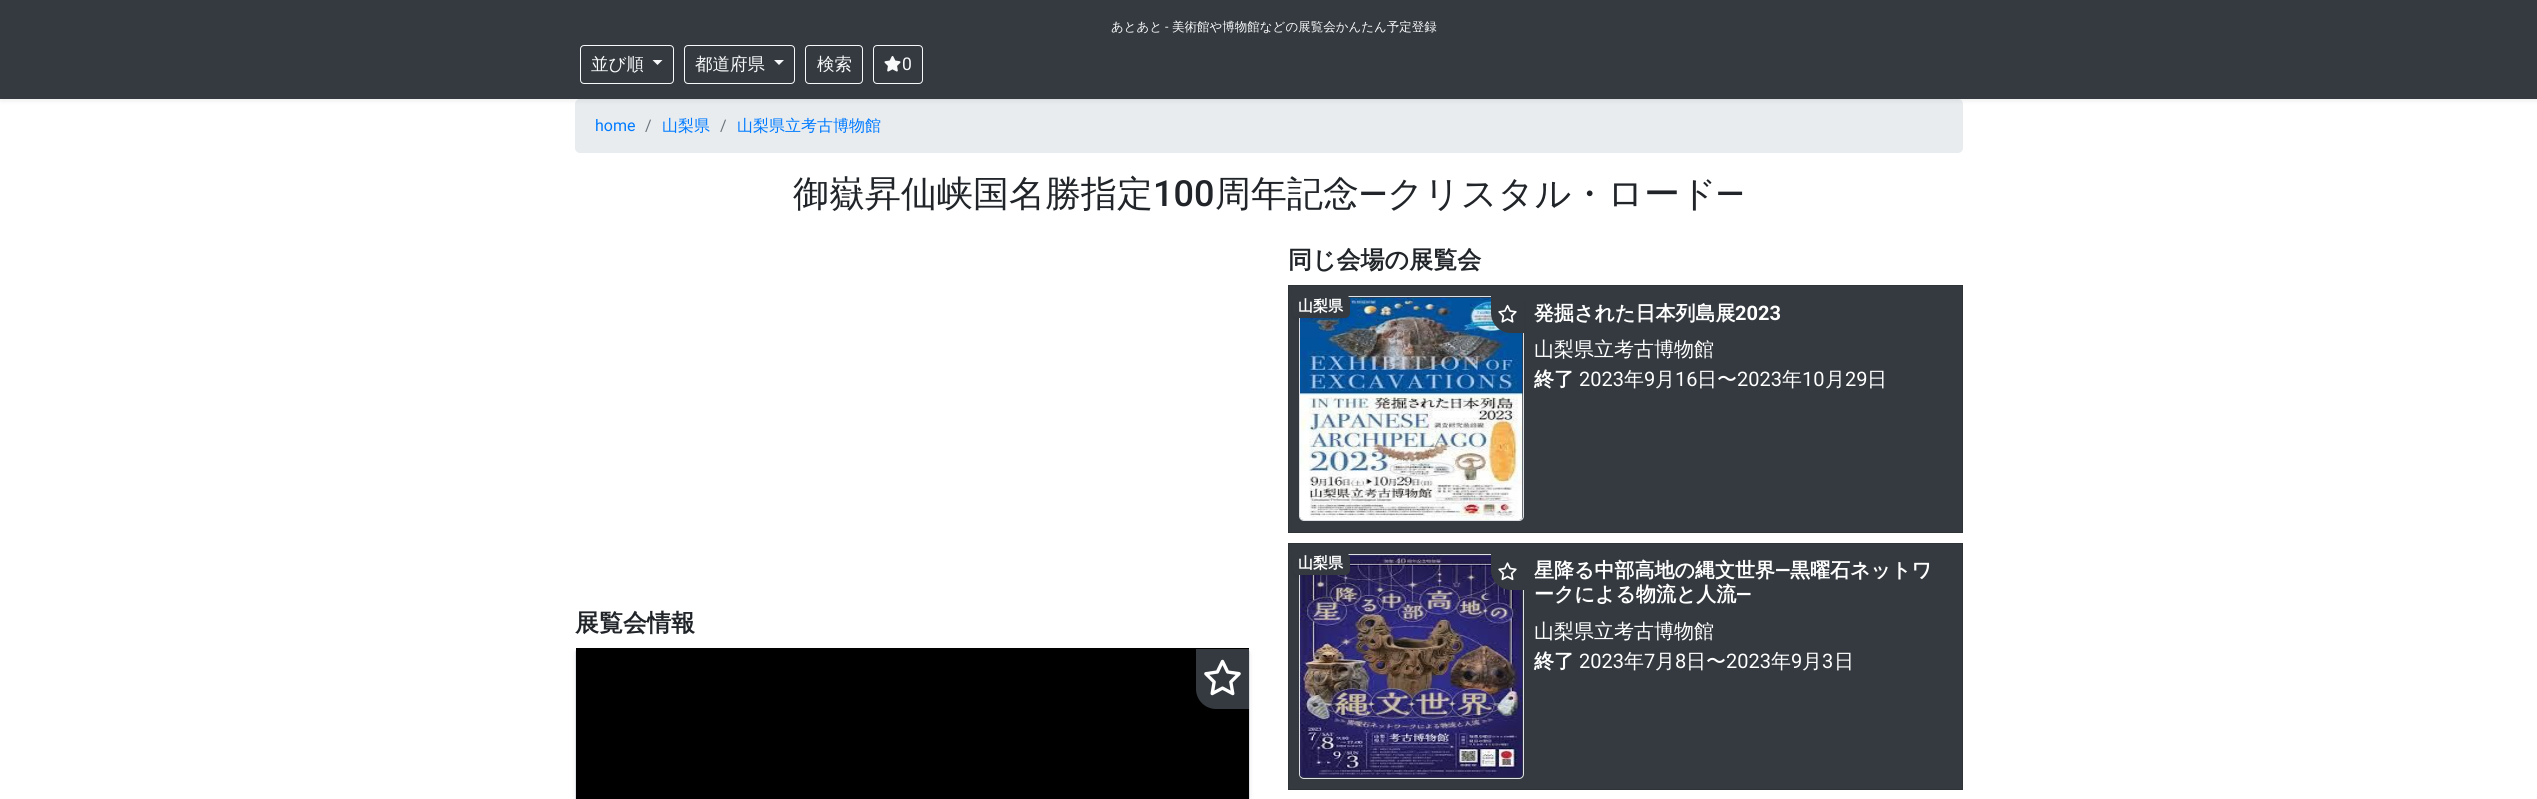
import math
import cairo

surface = cairo.ImageSurface(cairo.FORMAT_RGB24, 2537, 799)
c = cairo.Context(surface)
options = cairo.FontOptions()
options.set_hint_metrics(cairo.HINT_METRICS_OFF)
options.set_hint_style(cairo.HINT_STYLE_NONE)
c.set_font_options(options)
c.set_miter_limit(4)
def C(code):
 c.set_source_rgb(*(v / 255 for v in bytes.fromhex(code[-6:])))
def F(family, size, italic, bold):
 c.select_font_face(family, cairo.FONT_SLANT_ITALIC if italic else cairo.FONT_SLANT_NORMAL, cairo.FONT_WEIGHT_BOLD if bold else cairo.FONT_WEIGHT_NORMAL)
 c.set_font_size(size)
def T(x, y, s):
 c.move_to(x, y)
 c.show_text(s)
def R(x, y, w, h):
 c.rectangle(x, y, w, h)
 c.fill()
def Q(x, y, w, h, r):
 c.new_sub_path()
 for i, (u, v) in enumerate([(x + w - r, y + h - r), (x + r, y + h - r), (x + r, y + r), (x + w - r, y + r)]):
  c.arc(u, v, r, i * math.pi / 2, (i + 1) * math.pi / 2)
 c.close_path()
def S(x, y, w, h, r, blur, alpha):
 c.push_group_with_content(cairo.CONTENT_ALPHA)
 c.set_operator(cairo.OPERATOR_SOURCE)
 for i in range(15, -16, -2):
  e = blur * i / 6
  if min(w, h) + 2 * e > 0:
   c.set_source_rgba(0, 0, 0, alpha * math.erfc((i - 1) / 8.5) / 2)
   Q(x - e, y - e, w + 2 * e, h + 2 * e, max(0, min(r + e + blur * .6, min(w, h) / 2 + e)))
   c.fill()
 c.mask(c.pop_group())
def I(path, x, y, w, h):
 c.save()
 c.set_source_surface(cairo.ImageSurface.create_from_png(path), x, y)
 c.rectangle(x, y, w, h)
 c.fill()
 c.restore()
C('ffffff')
c.paint()
C('e9ecef')
Q(575,99,1388,54,5)
c.fill()
C('000000')
S(0,3,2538,98,0,2.5,.07)
C('343a40')
R(0,0,2537,99)
F('WenQuanYi Zen Hei Medium',12.5,0,0)
C('f8f9fa')
T(1111,31,'あとあと')
F('Roboto',12.5,0,0)
T(1165,31,'-')
F('WenQuanYi Zen Hei Medium',12.5,0,0)
T(1172,31,'美術館や博物館などの展覧会かんたん予定登録')
Q(580.5,45.5,93,38,3.5)
c.set_line_width(1)
c.stroke()
F('WenQuanYi Zen Hei Medium',17.5,0,0)
T(591,70,'並び順')
c.new_path()
c.move_to(652.5,60)
c.line_to(662.5,60)
c.line_to(657.5,65)
c.close_path()
c.fill()
Q(684.5,45.5,110,38,3.5)
c.stroke()
T(695,70,'都道府県')
c.new_path()
c.move_to(774,60)
c.line_to(784,60)
c.line_to(779,65)
c.close_path()
c.fill()
Q(805.5,45.5,57,38,3.5)
c.stroke()
T(817,70,'検索')
Q(873.5,45.5,49,38,3.5)
c.stroke()
I('1.png',884,56,17,16)
F('Roboto',17.5,0,0)
T(902,70,'0')
F('Roboto',16,0,0)
C('007bff')
T(595,131,'home')
C('6c757d')
T(645,131,'/')
F('WenQuanYi Zen Hei Medium',16,0,0)
C('007bff')
T(662,131,'山梨県')
F('Roboto',16,0,0)
C('6c757d')
T(720,131,'/')
F('WenQuanYi Zen Hei Medium',16,0,0)
C('007bff')
T(737,131,'山梨県立考古博物館')
F('WenQuanYi Zen Hei Medium',36,0,0)
C('212529')
T(793,206,'御嶽昇仙峡国名勝指定')
F('Roboto Medium',36,0,0)
T(1153,206,'100')
F('WenQuanYi Zen Hei Medium',36,0,0)
T(1215,206,'周年記念')
F('Roboto Medium',36,0,0)
T(1359,206,'—')
F('WenQuanYi Zen Hei Medium',36,0,0)
T(1387,206,'クリスタル・ロード')
F('Roboto Medium',36,0,0)
T(1716,206,'—')
F('WenQuanYi Zen Hei',24,0,1)
T(575,631,'展覧会情報')
C('000000')
S(575,650,675,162,5,2.5,.07)
Q(575.5,648.5,674,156,4.5)
C('dee2e6')
c.stroke()
C('000000')
R(576,648,673,151)
C('343a40')
c.new_path()
c.move_to(1196,649)
c.line_to(1249,649)
c.line_to(1249,709)
c.line_to(1216,709)
c.curve_to(1205,709,1196,700,1196,689)
c.close_path()
c.fill()
I('2.png',1204,659,37,37)
C('212529')
T(1288,268,'同じ会場の展覧会')
C('343a40')
c.rectangle(1288.5,285.5,674,247)
c.fill_preserve()
C('2e3338')
c.stroke()
Q(1299.5,296.5,224,224,4.5)
C('dee2e6')
c.stroke()
I('4.png',1300,297,223,223)
C('000000')
S(1293,298,57,22,5,2.5,.07)
C('343a40')
Q(1293,295,57,23,5)
c.fill()
F('WenQuanYi Zen Hei',15,0,1)
C('ffffff')
T(1298,311,'山梨県')
c.save()
c.set_fill_rule(cairo.FILL_RULE_EVEN_ODD)
c.new_path()
c.move_to(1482,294)
c.line_to(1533,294)
c.line_to(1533,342)
c.line_to(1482,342)
c.close_path()
c.move_to(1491,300)
c.line_to(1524,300)
c.line_to(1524,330)
c.line_to(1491,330)
c.close_path()
c.clip()
C('000000')
S(1491,303,33,30,0,2.5,.07)
c.restore()
C('343a40')
c.new_path()
c.move_to(1491,296)
c.line_to(1524,296)
c.line_to(1524,333)
c.line_to(1511,333)
c.curve_to(1500,333,1491,324,1491,313)
c.close_path()
c.fill()
I('3.png',1498,304,19,19)
F('WenQuanYi Zen Hei',20,0,1)
C('ffffff')
T(1534,320,'発掘された日本列島展')
F('Roboto',20,0,1)
T(1735,320,'2023')
F('WenQuanYi Zen Hei Medium',20,0,0)
T(1534,356,'山梨県立考古博物館')
F('WenQuanYi Zen Hei',20,0,1)
T(1534,386,'終了')
F('Roboto',20,0,0)
T(1579,386,'2023')
F('WenQuanYi Zen Hei Medium',20,0,0)
T(1624,386,'年')
F('Roboto',20,0,0)
T(1644,386,'9')
F('WenQuanYi Zen Hei Medium',20,0,0)
T(1655,386,'月')
F('Roboto',20,0,0)
T(1675,386,'16')
F('WenQuanYi Zen Hei Medium',20,0,0)
T(1697,386,'日〜')
F('Roboto',20,0,0)
T(1737,386,'2023')
F('WenQuanYi Zen Hei Medium',20,0,0)
T(1782,386,'年')
F('Roboto',20,0,0)
T(1802,386,'10')
F('WenQuanYi Zen Hei Medium',20,0,0)
T(1825,386,'月')
F('Roboto',20,0,0)
T(1845,386,'29')
F('WenQuanYi Zen Hei Medium',20,0,0)
T(1867,386,'日')
C('343a40')
c.rectangle(1288.5,543.5,674,246)
c.fill_preserve()
C('2e3338')
c.stroke()
Q(1299.5,554.5,224,224,4.5)
C('dee2e6')
c.stroke()
I('6.png',1300,555,223,223)
C('000000')
S(1293,555,57,23,5,2.5,.07)
C('343a40')
Q(1293,553,57,22,5)
c.fill()
F('WenQuanYi Zen Hei',15,0,1)
C('ffffff')
T(1298,568,'山梨県')
C('343a40')
c.new_path()
c.move_to(1491,554)
c.line_to(1524,554)
c.line_to(1524,590)
c.line_to(1511,590)
c.curve_to(1500,590,1491,581,1491,570)
c.close_path()
c.fill()
I('5.png',1498,562,19,19)
F('WenQuanYi Zen Hei',20,0,1)
C('ffffff')
T(1534,577,'星降る中部高地の縄文世界')
F('Roboto',20,0,1)
T(1775,577,'—')
F('WenQuanYi Zen Hei',20,0,1)
T(1790,577,'黒曜石ネットワ')
T(1534,601,'ークによる物流と人流')
F('Roboto',20,0,1)
T(1736,601,'—')
F('WenQuanYi Zen Hei Medium',20,0,0)
T(1534,638,'山梨県立考古博物館')
F('WenQuanYi Zen Hei',20,0,1)
T(1534,668,'終了')
F('Roboto',20,0,0)
T(1579,668,'2023')
F('WenQuanYi Zen Hei Medium',20,0,0)
T(1624,668,'年')
F('Roboto',20,0,0)
T(1644,668,'7')
F('WenQuanYi Zen Hei Medium',20,0,0)
T(1655,668,'月')
F('Roboto',20,0,0)
T(1675,668,'8')
F('WenQuanYi Zen Hei Medium',20,0,0)
T(1686,668,'日〜')
F('Roboto',20,0,0)
T(1726,668,'2023')
F('WenQuanYi Zen Hei Medium',20,0,0)
T(1771,668,'年')
F('Roboto',20,0,0)
T(1791,668,'9')
F('WenQuanYi Zen Hei Medium',20,0,0)
T(1802,668,'月')
F('Roboto',20,0,0)
T(1822,668,'3')
F('WenQuanYi Zen Hei Medium',20,0,0)
T(1834,668,'日')
surface.write_to_png('o.png')
